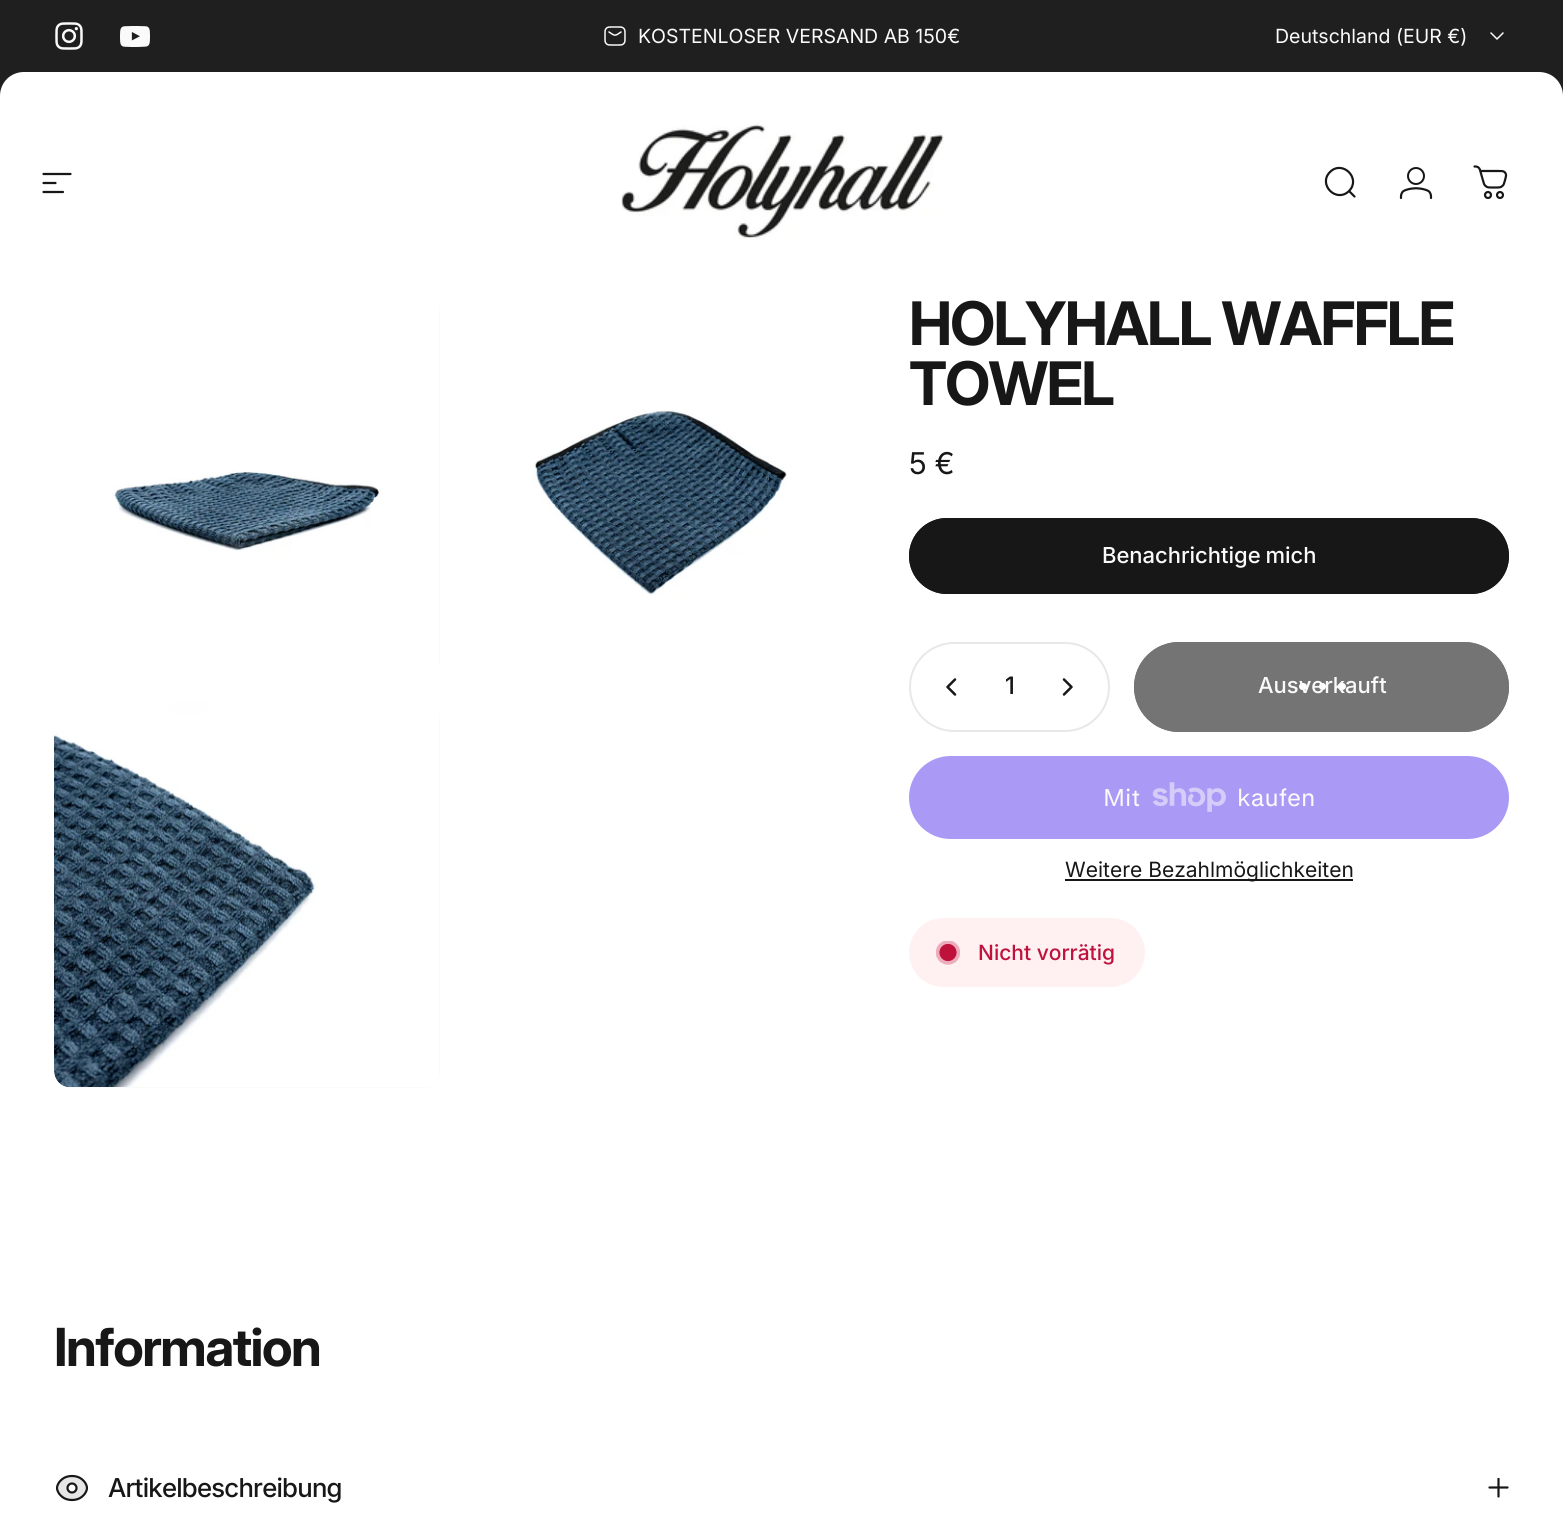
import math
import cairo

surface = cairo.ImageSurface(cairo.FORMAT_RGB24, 1563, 1533)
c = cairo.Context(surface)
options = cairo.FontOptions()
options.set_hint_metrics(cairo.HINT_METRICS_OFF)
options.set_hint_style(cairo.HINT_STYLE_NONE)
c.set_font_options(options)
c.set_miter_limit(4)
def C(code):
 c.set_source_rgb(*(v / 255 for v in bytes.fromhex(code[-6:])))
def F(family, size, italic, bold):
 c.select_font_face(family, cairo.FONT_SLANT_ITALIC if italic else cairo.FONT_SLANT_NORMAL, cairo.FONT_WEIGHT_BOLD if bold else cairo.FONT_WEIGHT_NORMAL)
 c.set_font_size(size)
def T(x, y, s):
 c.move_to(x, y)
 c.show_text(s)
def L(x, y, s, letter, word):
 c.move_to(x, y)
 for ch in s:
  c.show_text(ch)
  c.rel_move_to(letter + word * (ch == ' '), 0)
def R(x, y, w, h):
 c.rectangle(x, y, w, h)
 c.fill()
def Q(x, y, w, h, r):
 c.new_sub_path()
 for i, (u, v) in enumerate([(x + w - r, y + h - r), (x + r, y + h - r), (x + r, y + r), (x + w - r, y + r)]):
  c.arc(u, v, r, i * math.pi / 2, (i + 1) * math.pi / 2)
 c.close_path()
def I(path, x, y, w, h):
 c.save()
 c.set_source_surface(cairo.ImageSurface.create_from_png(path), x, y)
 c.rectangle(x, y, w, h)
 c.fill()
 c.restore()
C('ffffff')
c.paint()
C('1f1f1f')
R(0,0,1563,24)
c.new_path()
c.move_to(24,0)
c.line_to(1539,0)
c.curve_to(1552.5,0,1563,10.5,1563,24)
c.line_to(1563,96)
c.line_to(0,96)
c.line_to(0,24)
c.curve_to(0,10.5,10.5,0,24,0)
c.close_path()
c.fill()
I('1.png',55,22,28,28)
I('2.png',120,26,30,21)
I('3.png',604,26,22,20)
F('Inter',19.5,0,0)
C('fafafa')
T(638,43,'KOSTENLOSER VERSAND AB 150€')
T(1275,43,'Deutschland (EUR €)')
c.new_path()
c.move_to(1491,33)
c.line_to(1497,39)
c.line_to(1503,33)
c.set_line_width(1.5)
c.set_line_cap(cairo.LINE_CAP_ROUND)
c.set_line_join(cairo.LINE_JOIN_ROUND)
c.stroke()
C('ffffff')
c.new_path()
c.move_to(24,72)
c.line_to(1539,72)
c.curve_to(1552.5,72,1563,82.5,1563,96)
c.line_to(1563,294)
c.line_to(0,294)
c.line_to(0,96)
c.curve_to(0,82.5,10.5,72,24,72)
c.close_path()
c.fill()
c.new_path()
c.move_to(43.5,174)
c.line_to(70.5,174)
c.move_to(43.5,183)
c.line_to(55.5,183)
c.move_to(43.5,192)
c.line_to(63,192)
C('171717')
c.set_line_width(2.2)
c.set_line_join(cairo.LINE_JOIN_MITER)
c.stroke()
I('4.png',621,122,323,118)
c.new_path()
c.move_to(1354.5,196.5)
c.line_to(1349,191)
c.move_to(1349,191)
c.curve_to(1361.5,178.5,1342.5,159.5,1330,172)
c.curve_to(1317.5,184.5,1336.5,203.5,1349,191)
c.close_path()
c.stroke()
I('5.png',1399,167,34,33)
I('6.png',1473,165,35,35)
C('fafafa')
Q(54,294,386,384,17)
c.fill()
I('7.png',54,294,385,384)
Q(464,294,385,384,17)
c.fill()
I('8.png',464,294,385,384)
Q(54,702,386,386,17)
c.fill()
I('9.png',54,702,385,385)
F('Inter',60,0,1)
C('171717')
L(909,345,'HOLYHALL WAFFLE',-1.75,0)
L(909,405,'TOWEL',-1.75,0)
F('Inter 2',30,0,0)
T(909,474,'5 €')
Q(909,518,600,76,38)
c.fill()
Q(910.5,519.5,597,73,36.5)
c.set_line_width(3)
c.set_line_cap(cairo.LINE_CAP_BUTT)
c.stroke()
F('Inter Medium',22,0,0)
C('fafafa')
L(1102,563,'Benachrichtige mich',0,-1)
Q(910,643,199,88,44)
C('e8e8e8')
c.set_line_width(2)
c.stroke()
c.new_path()
c.move_to(955,679.5)
c.line_to(947.5,687)
c.line_to(955,694.5)
C('171717')
c.set_line_width(2.5)
c.set_line_cap(cairo.LINE_CAP_ROUND)
c.set_line_join(cairo.LINE_JOIN_ROUND)
c.stroke()
F('Inter 2 Medium',24,0,0)
T(1005,694,'1')
c.new_path()
c.move_to(1064,679.5)
c.line_to(1071.5,687)
c.line_to(1064,694.5)
c.stroke()
C('747474')
Q(1134,642,375,90,45)
c.fill()
C('ffffff')
Q(1299,683,8,7,3.5)
c.fill()
c.arc(1322.5,686.5,3.5,0,2 * math.pi)
c.fill()
Q(1338,683,8,7,3.5)
c.fill()
Q(1135.5,643.5,372,87,43.5)
C('747474')
c.set_line_width(3)
c.set_line_cap(cairo.LINE_CAP_BUTT)
c.set_line_join(cairo.LINE_JOIN_MITER)
c.stroke()
F('Inter Medium',22,0,0)
C('fafafa')
T(1258,693,'Ausverkauft')
C('aa99f5')
Q(909,756,600,83,41.5)
c.fill()
F('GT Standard',24,0,0)
C('fafafa')
T(1103,806,'Mit')
I('10.png',1152,782,74,30)
T(1237,806,'kaufen')
C('171717')
R(1065,879,288,2)
F('Inter',21,0,0)
T(1065,877,'Weitere Bezahlmöglichkeiten')
C('fff1f2')
Q(909,918,236,69,34.5)
c.fill()
C('be123c')
c.arc(948,952.5,7.5,0,2 * math.pi)
c.fill_preserve()
c.set_line_width(2.2)
c.stroke()
c.save()
c.rectangle(936,941,24,24)
c.clip()
c.arc(948,952.5,10,0,2 * math.pi)
c.set_source_rgba(0.745,0.071,0.235,0.3)
c.set_line_width(4.5)
c.stroke()
c.restore()
F('Inter Medium',21,0,0)
T(978,960,'Nicht vorrätig')
F('Inter',52.5,0,1)
C('171717')
L(54,1366,'Information',-1.5,0)
I('11.png',55,1474,34,28)
F('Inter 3 Medium',26,0,0)
L(108,1497,'Artikelbeschreibung',-.75,0)
c.save()
c.rectangle(1488,1478,21,21)
c.clip()
c.new_path()
c.move_to(1498.5,1496.5)
c.line_to(1498.5,1478.5)
c.move_to(1507.5,1487.5)
c.line_to(1489.5,1487.5)
c.set_line_cap(cairo.LINE_CAP_ROUND)
c.set_line_join(cairo.LINE_JOIN_ROUND)
c.stroke()
c.restore()
surface.write_to_png('o.png')
